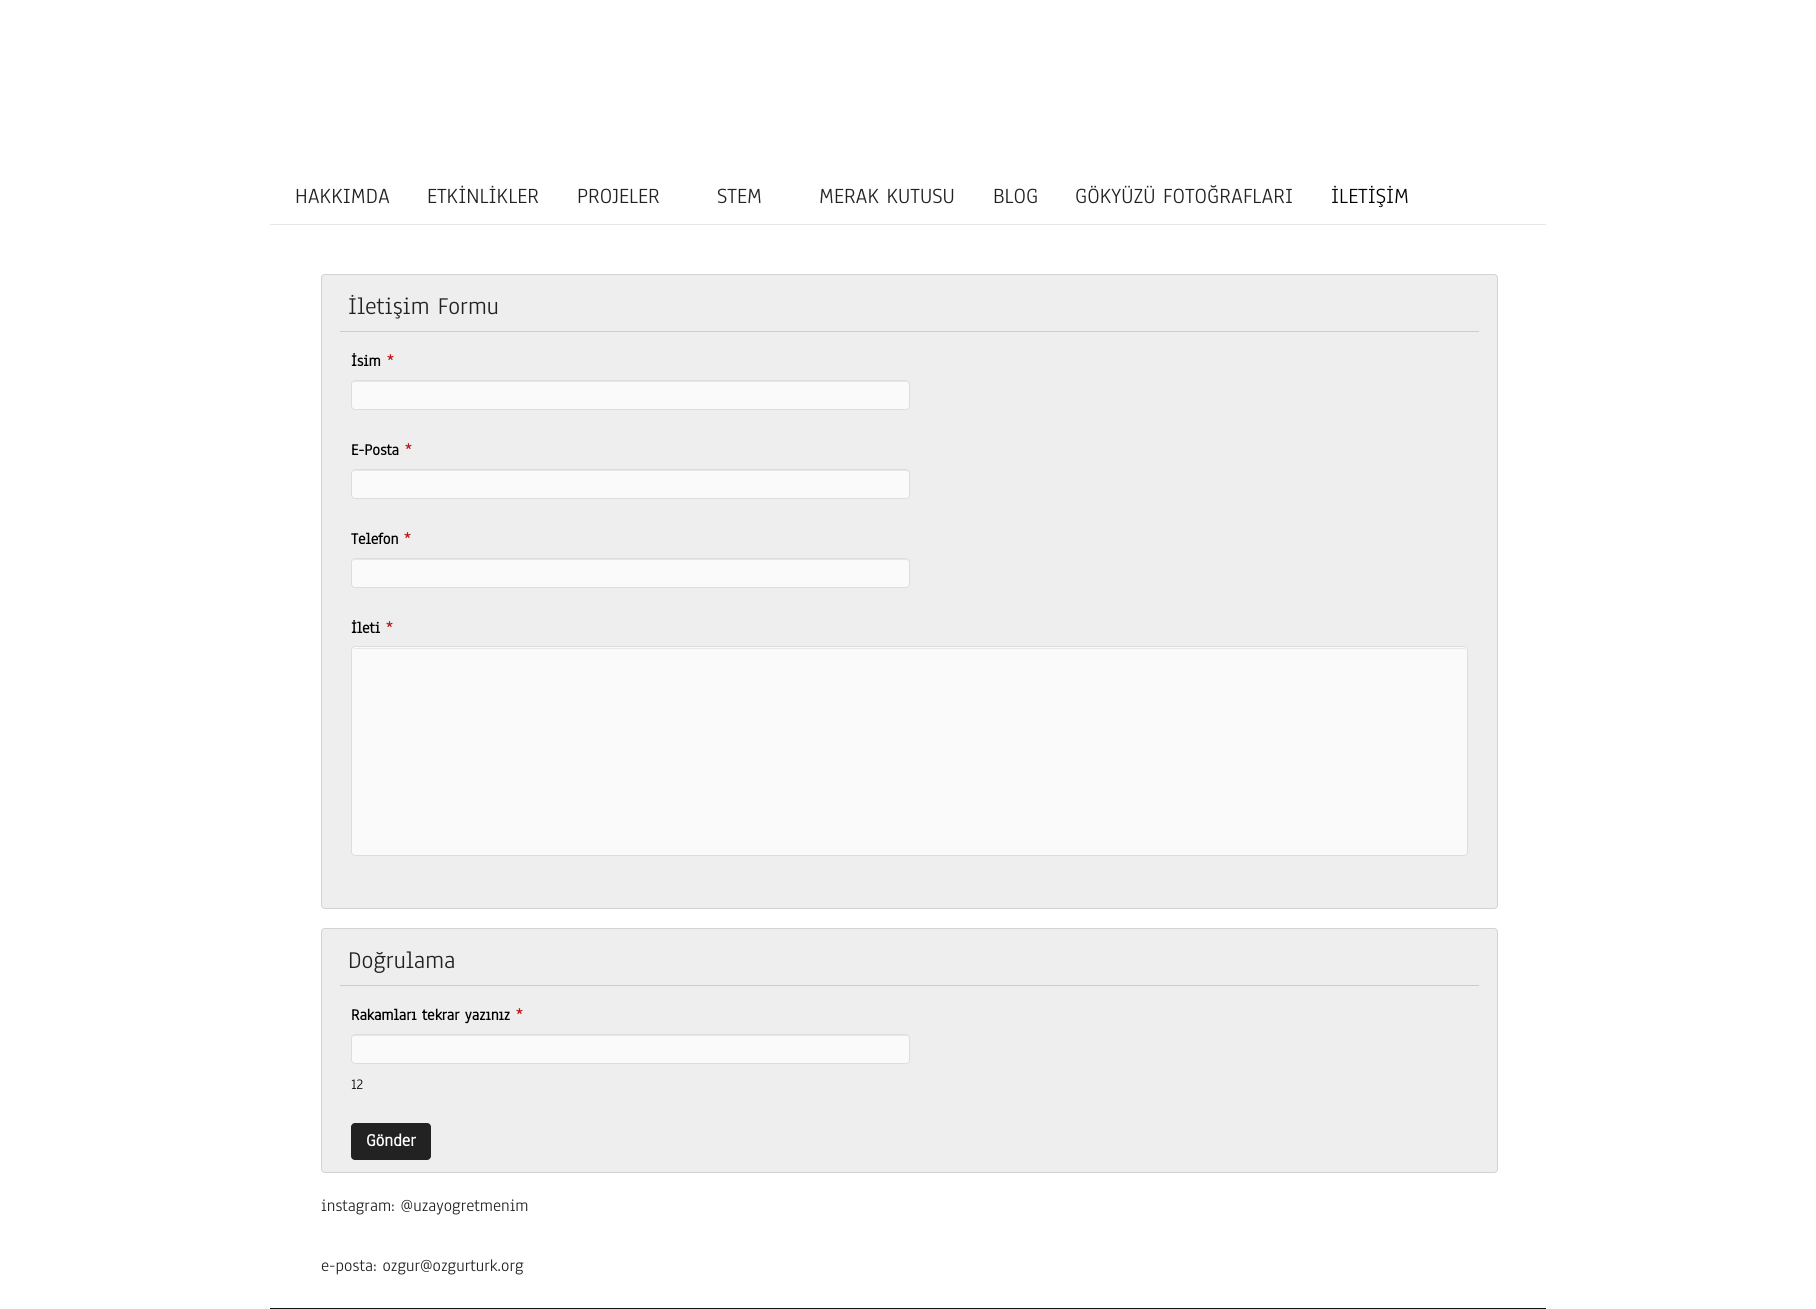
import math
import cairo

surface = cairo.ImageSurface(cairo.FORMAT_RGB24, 1816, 1309)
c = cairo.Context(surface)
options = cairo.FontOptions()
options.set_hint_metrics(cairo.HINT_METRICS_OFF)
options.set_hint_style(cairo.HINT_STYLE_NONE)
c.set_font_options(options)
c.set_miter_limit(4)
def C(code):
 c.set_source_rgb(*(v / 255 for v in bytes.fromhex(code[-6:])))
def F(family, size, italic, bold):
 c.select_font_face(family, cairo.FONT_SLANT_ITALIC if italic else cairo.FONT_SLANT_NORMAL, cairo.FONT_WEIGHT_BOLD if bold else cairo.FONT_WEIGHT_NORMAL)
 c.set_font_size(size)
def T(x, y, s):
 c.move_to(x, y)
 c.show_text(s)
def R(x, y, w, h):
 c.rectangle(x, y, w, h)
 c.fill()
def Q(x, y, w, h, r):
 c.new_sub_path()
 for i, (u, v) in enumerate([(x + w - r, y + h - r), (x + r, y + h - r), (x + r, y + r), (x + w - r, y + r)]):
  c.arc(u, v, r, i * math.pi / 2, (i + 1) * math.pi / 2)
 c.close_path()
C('ffffff')
c.paint()
C('e6e6e6')
R(270,224,1276,1)
F('Anaheim',22.5,0,0)
C('222222')
T(295,203,'HAKKIMDA')
T(427,203,'ETKİNLİKLER')
T(577,203,'PROJELER')
T(717,203,'STEM')
T(819,203,'MERAK KUTUSU')
T(993,203,'BLOG')
T(1075,203,'GÖKYÜZÜ FOTOĞRAFLARI')
C('000000')
T(1331,203,'İLETİŞİM')
C('eeeeee')
Q(321.5,274.5,1176,634,3.5)
c.fill_preserve()
C('d3d3d3')
c.set_line_width(1)
c.stroke()
C('cccccc')
R(340,331,1139,1)
F('Anaheim',25,0,0)
C('222222')
T(348,314,'İletişim Formu')
F('Anaheim',16.25,0,1)
C('000000')
T(351,366,'İsim')
C('bc1212')
T(387,366,'*')
C('fafafa')
Q(351,380,559,30,4)
c.fill()
C('e7e7e7')
c.new_path()
c.move_to(355,382)
c.line_to(906,382)
c.curve_to(908,382,909,384,909,385)
c.line_to(909,384)
c.curve_to(909,382,908,381,906,381)
c.line_to(356,381)
c.curve_to(354,381,353,382,353,383)
c.close_path()
c.fill()
Q(351.5,380.5,558,29,3.5)
C('dddddd')
c.stroke()
C('000000')
T(351,455,'E-Posta')
C('bc1212')
T(405,455,'*')
C('fafafa')
Q(351,469,559,30,4)
c.fill()
C('e7e7e7')
c.new_path()
c.move_to(355,471)
c.line_to(906,471)
c.curve_to(908,471,909,472,909,474)
c.line_to(909,472)
c.curve_to(909,471,908,470,906,470)
c.line_to(356,470)
c.curve_to(354,470,353,471,353,472)
c.close_path()
c.fill()
Q(351.5,469.5,558,29,3.5)
C('dddddd')
c.stroke()
C('000000')
T(351,544,'Telefon')
C('bc1212')
T(404,544,'*')
C('fafafa')
Q(351,558,559,30,4)
c.fill()
C('e7e7e7')
c.new_path()
c.move_to(355,560)
c.line_to(906,560)
c.curve_to(908,560,909,561,909,562)
c.line_to(909,560)
c.line_to(907,559)
c.line_to(354,559)
c.line_to(353,561)
c.close_path()
c.fill()
Q(351.5,558.5,558,29,3.5)
C('dddddd')
c.stroke()
C('000000')
T(351,633,'İleti')
C('bc1212')
T(386,633,'*')
C('fafafa')
Q(351,646,1117,210,4)
c.fill()
C('e7e7e7')
c.new_path()
c.move_to(355,649)
c.line_to(1464,649)
c.curve_to(1465,649,1466,650,1466,651)
c.curve_to(1466,649,1465,648,1464,648)
c.line_to(355,648)
c.line_to(353,650)
c.close_path()
c.fill()
Q(351.5,646.5,1116,209,3.5)
C('dddddd')
c.stroke()
C('eeeeee')
Q(321.5,928.5,1176,244,3.5)
c.fill_preserve()
C('d3d3d3')
c.stroke()
C('cccccc')
R(340,985,1139,1)
F('Anaheim',25,0,0)
C('222222')
T(348,968,'Doğrulama')
F('Anaheim',16.25,0,1)
C('000000')
T(351,1020,'Rakamları tekrar yazınız')
C('bc1212')
T(516,1020,'*')
C('fafafa')
Q(351,1034,559,30,4)
c.fill()
C('e7e7e7')
c.new_path()
c.move_to(355,1036)
c.line_to(906,1036)
c.curve_to(908,1036,909,1037,909,1039)
c.line_to(909,1038)
c.curve_to(909,1036,908,1035,906,1035)
c.line_to(356,1035)
c.curve_to(354,1035,353,1036,353,1037)
c.close_path()
c.fill()
Q(351.5,1034.5,558,29,3.5)
C('dddddd')
c.stroke()
F('Anaheim',15,0,0)
C('000000')
T(351,1089,'12')
C('222222')
Q(351,1123,80,37,4)
c.fill()
F('Anaheim',18,0,1)
C('ffffff')
T(366,1146,'Gönder')
F('Anaheim',17.5,0,0)
C('222222')
T(321,1211,'instagram: @uzayogretmenim')
T(321,1271,'e-posta: ozgur@ozgurturk.org')
C('111111')
R(270,1308,1276,1)
surface.write_to_png('o.png')
